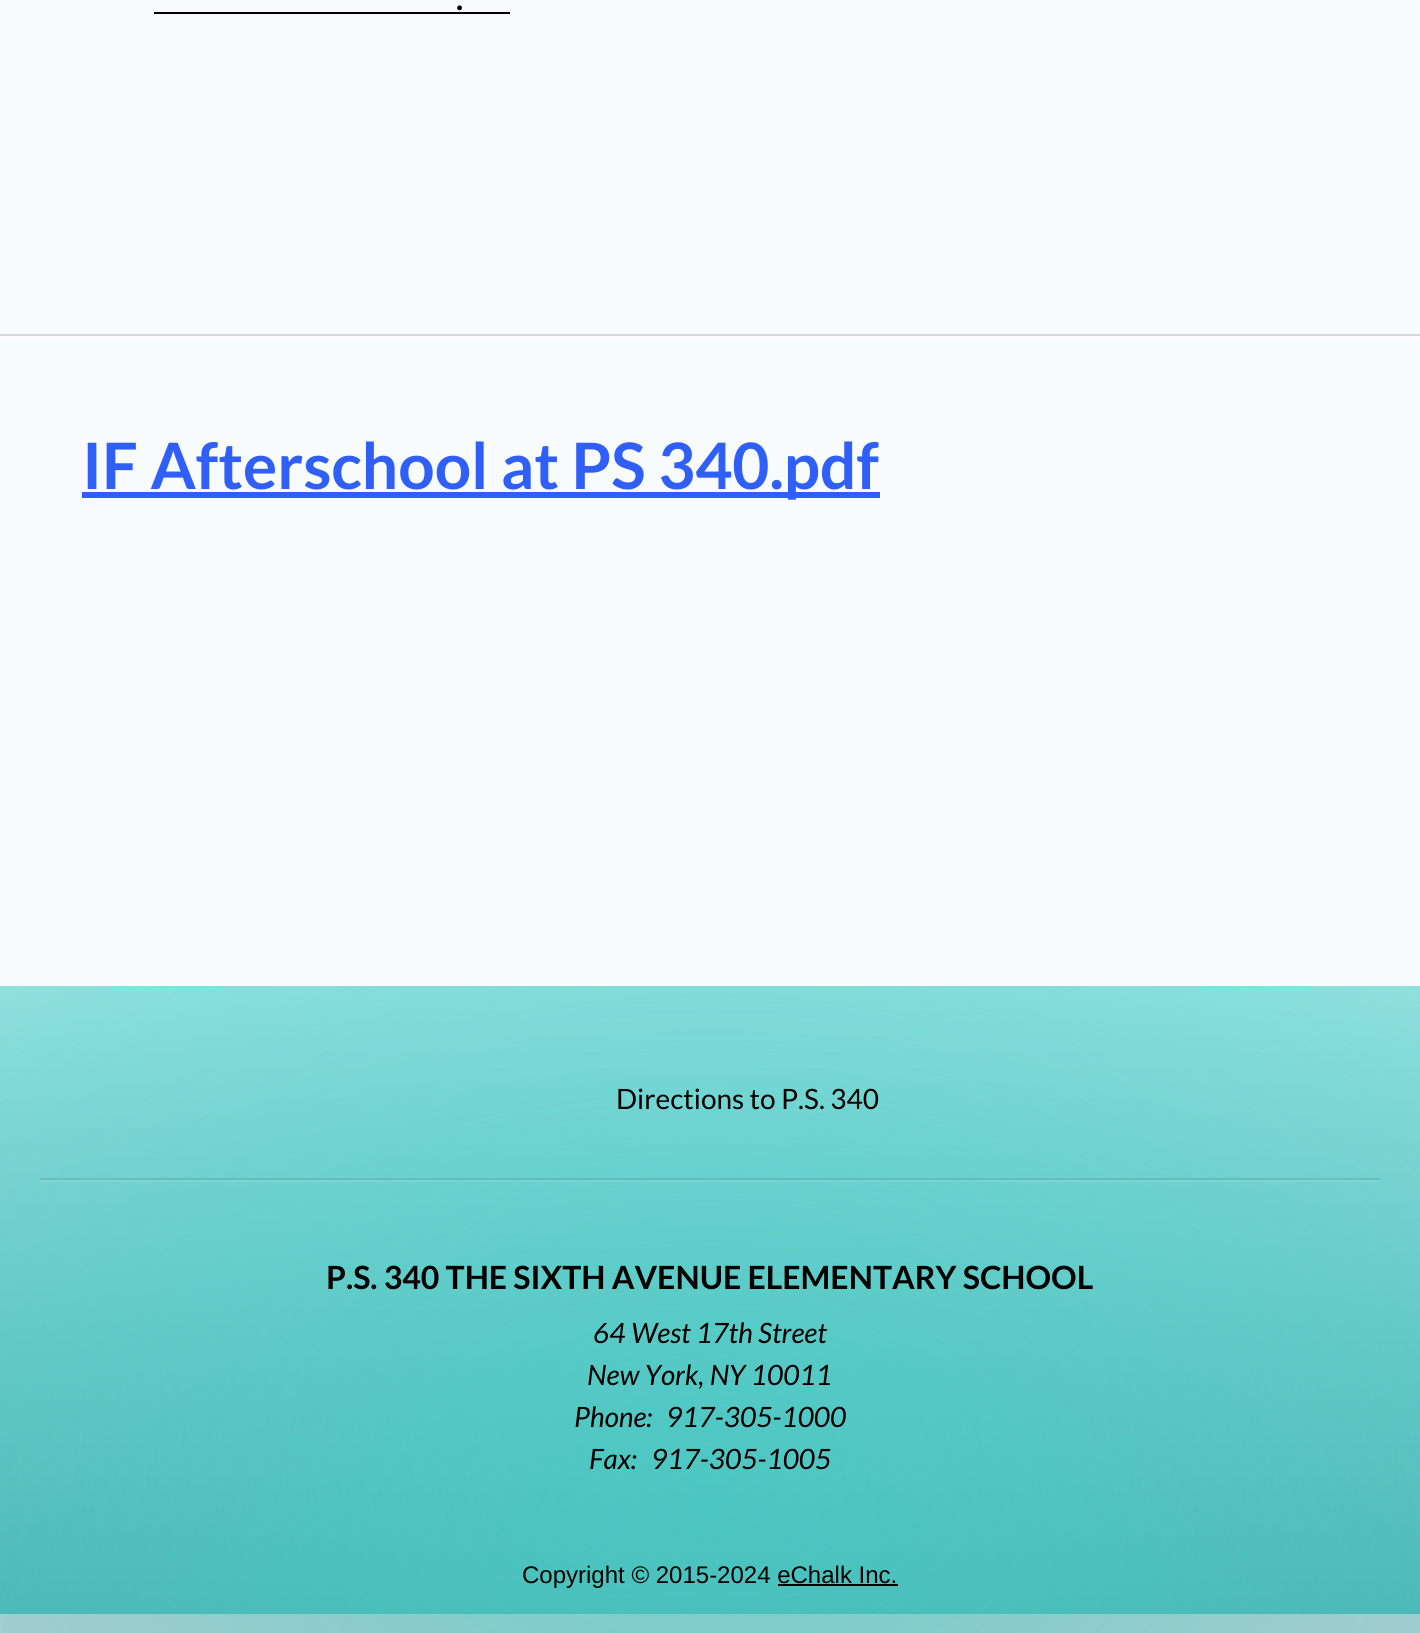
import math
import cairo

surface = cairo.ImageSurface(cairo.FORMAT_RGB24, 1420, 1633)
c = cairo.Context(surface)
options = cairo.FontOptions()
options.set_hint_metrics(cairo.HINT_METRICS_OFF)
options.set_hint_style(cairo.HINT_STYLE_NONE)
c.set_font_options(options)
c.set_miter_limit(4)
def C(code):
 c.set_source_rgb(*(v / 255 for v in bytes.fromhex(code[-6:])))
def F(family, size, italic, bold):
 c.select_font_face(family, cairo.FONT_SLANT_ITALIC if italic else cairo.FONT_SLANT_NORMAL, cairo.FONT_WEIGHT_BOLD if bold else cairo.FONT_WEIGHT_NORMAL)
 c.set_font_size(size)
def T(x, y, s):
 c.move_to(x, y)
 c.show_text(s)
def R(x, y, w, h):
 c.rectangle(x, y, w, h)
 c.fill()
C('f8fbfb')
c.paint()
C('fefefe')
R(0,336,1420,2)
C('d5d8d8')
R(0,334,1420,2)
F('Lato',32,0,1)
C('000000')
T(456,10,'.')
R(154,12,356,2)
C('305ff8')
R(82,492,798,6)
F('Lato',64,0,1)
T(82,489,'IF Afterschool at PS 340.pdf')
gradient = cairo.LinearGradient(710,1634,710,986)
gradient.add_color_stop_rgba(0,0.298,0.71,0.698,1)
gradient.add_color_stop_rgba(1,0.561,0.878,0.871,1)
c.set_source(gradient)
R(0,986,1420,628)
C('b2cdce')
R(2,1614,1418,19)
C('b7d1d0')
R(0,1614,2,19)
gradient = cairo.RadialGradient(0,0,0,0,0,1)
gradient.set_matrix(cairo.Matrix(1 / 1004, 0, 0, 1 / 686, -1 * 710 / 1004, -1 * 1471 / 686))
gradient.add_color_stop_rgba(0,0.263,0.8,0.78,.6)
gradient.add_color_stop_rgba(1,0.263,0.8,0.78,0)
c.set_source(gradient)
R(0,986,1420,647)
c.set_source_rgba(0,0,0,0.09)
R(40,1178,1340,2)
c.set_source_rgba(1,1,1,0.09)
R(40,1180,1340,2)
F('Lato',28,0,0)
C('000000')
T(616,1109,'Directions to P.S. 340')
F('Lato',32,0,1)
T(326,1289,'P.S. 340 THE SIXTH AVENUE ELEMENTARY SCHOOL')
F('Lato',28,1,0)
T(593,1343,'64 West 17th Street')
T(587,1385,'New York, NY 10011')
T(574,1427,'Phone:')
T(666,1427,'917-305-1000')
T(589,1469,'Fax:')
T(651,1469,'917-305-1005')
F('Liberation Sans',24,0,0)
T(522,1583,'Copyright © 2015-2024 eChalk Inc.')
R(778,1584,120,2)
surface.write_to_png('o.png')
